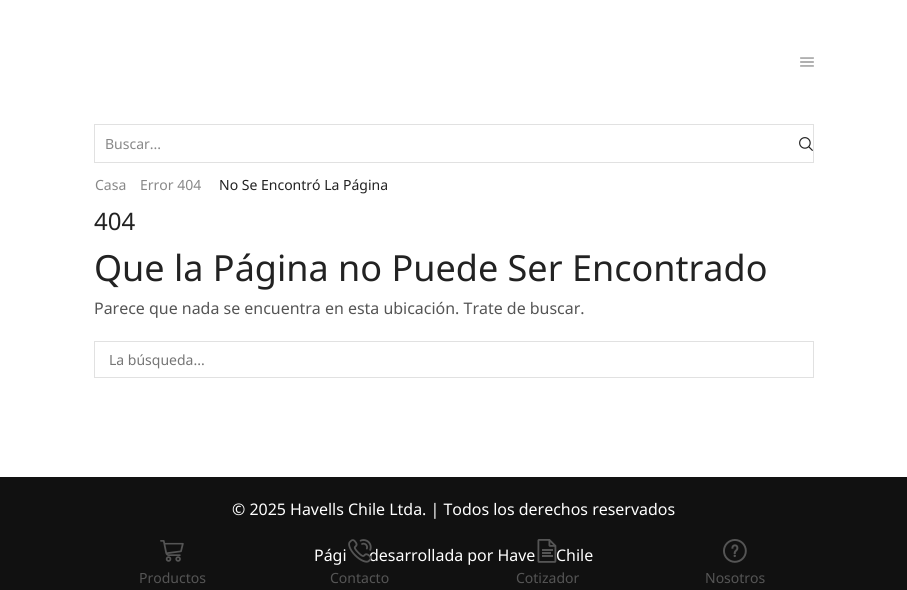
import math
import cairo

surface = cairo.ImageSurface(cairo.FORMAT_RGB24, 907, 590)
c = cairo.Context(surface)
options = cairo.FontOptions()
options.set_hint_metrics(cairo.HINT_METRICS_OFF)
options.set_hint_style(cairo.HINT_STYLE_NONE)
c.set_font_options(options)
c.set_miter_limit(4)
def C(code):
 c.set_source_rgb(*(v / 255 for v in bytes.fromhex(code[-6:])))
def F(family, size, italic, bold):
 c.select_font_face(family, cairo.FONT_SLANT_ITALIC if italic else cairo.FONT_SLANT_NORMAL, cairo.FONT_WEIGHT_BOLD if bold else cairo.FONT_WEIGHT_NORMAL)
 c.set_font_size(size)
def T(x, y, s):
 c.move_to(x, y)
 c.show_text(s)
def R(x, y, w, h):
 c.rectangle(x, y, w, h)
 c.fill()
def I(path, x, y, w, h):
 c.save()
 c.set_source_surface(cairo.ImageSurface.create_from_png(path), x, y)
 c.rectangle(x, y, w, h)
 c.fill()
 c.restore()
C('ffffff')
c.paint()
I('1.png',800,57,14,10)
c.rectangle(94.5,124.5,719,38)
C('e1e1e1')
c.set_line_width(1)
c.stroke()
F('Noto Sans',14,0,0)
C('888888')
T(105,149,'Buscar...')
I('2.png',799,137,14,14)
T(95,190,'Casa')
T(140,190,'Error 404')
C('222222')
T(219,190,'No Se Encontró La Página')
F('Noto Sans',24,0,0)
T(94,230,'404')
F('Noto Sans',36,0,0)
T(94,281,'Que la Página no Puede Ser Encontrado')
F('Noto Sans',15.95,0,0)
C('555555')
T(94,314,'Parece que nada se encuentra en esta ubicación. Trate de buscar.')
c.rectangle(94.5,341.5,719,36)
C('e1e1e1')
c.stroke()
F('Noto Sans',14,0,0)
C('757575')
T(109,365,'La búsqueda...')
C('111111')
R(0,477,907,113)
I('3.png',160,540,24,22)
C('555555')
T(139,583,'Productos')
F('Noto Sans',15.95,0,0)
C('ffffff')
T(369,561,'desarrollada por Have')
I('4.png',348,539,24,24)
F('Noto Sans',14,0,0)
C('555555')
T(330,583,'Contacto')
F('Noto Sans',15.95,0,0)
C('ffffff')
T(556,561,'Chile')
I('5.png',537,539,20,24)
F('Noto Sans',14,0,0)
C('555555')
T(516,583,'Cotizador')
I('6.png',723,539,24,24)
T(705,583,'Nosotros')
F('Noto Sans',15.95,0,0)
C('ffffff')
T(232,515,'© 2025 Havells Chile Ltda. | Todos los derechos reservados')
T(314,561,'Pági')
surface.write_to_png('o.png')
